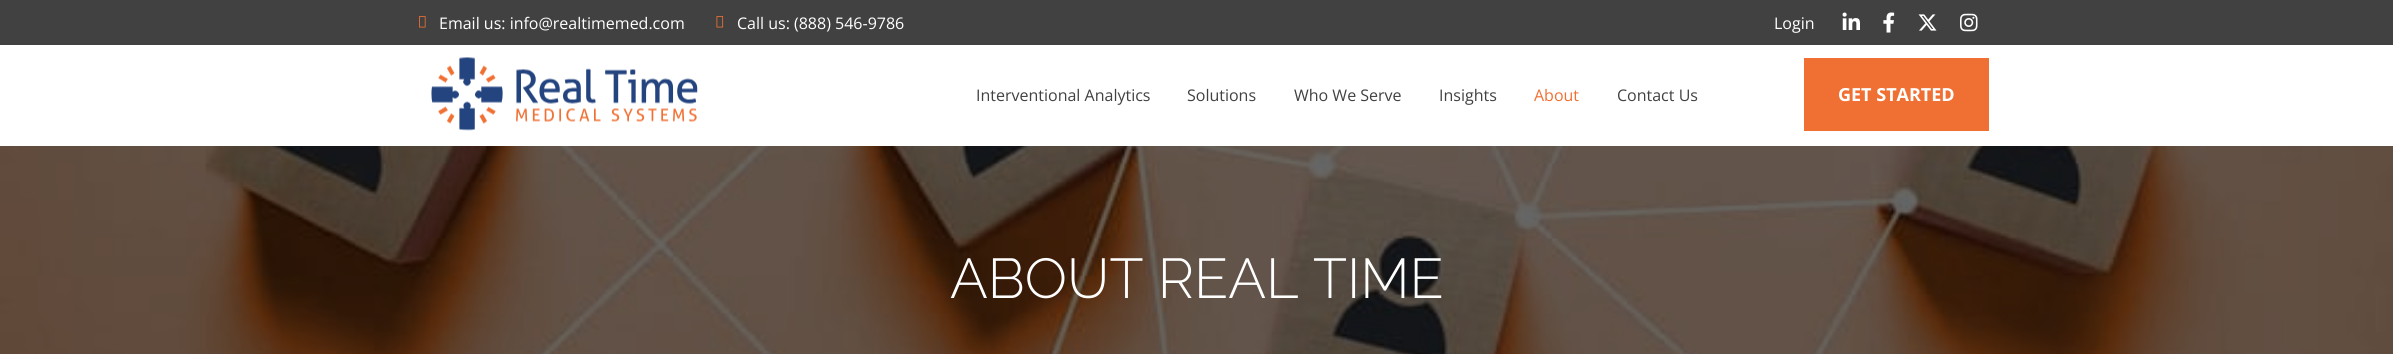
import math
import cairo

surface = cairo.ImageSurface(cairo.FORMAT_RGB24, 2393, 354)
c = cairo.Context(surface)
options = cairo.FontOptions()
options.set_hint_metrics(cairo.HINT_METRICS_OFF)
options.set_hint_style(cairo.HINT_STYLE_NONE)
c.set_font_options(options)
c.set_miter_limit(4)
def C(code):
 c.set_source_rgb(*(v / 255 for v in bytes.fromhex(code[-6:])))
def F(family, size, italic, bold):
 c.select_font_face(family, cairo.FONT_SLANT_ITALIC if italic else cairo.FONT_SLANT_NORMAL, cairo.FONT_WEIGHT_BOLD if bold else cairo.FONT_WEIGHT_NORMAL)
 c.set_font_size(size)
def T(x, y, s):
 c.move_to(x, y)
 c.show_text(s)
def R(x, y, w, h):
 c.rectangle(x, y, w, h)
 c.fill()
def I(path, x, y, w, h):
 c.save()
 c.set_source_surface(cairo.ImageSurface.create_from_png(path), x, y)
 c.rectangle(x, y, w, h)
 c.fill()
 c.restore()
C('ffffff')
c.paint()
C('414141')
R(0,0,2393,45)
I('1.png',419,16,7,12)
F('Open Sans',16,0,0)
C('ffffff')
T(439,29,'Email us: info@realtimemed.com')
I('2.png',716,16,8,12)
T(737,29,'Call us: (888) 546-9786')
T(1774,29,'Login')
I('3.png',1842,12,18,18)
I('4.png',1883,12,12,21)
I('5.png',1918,14,19,17)
I('6.png',1960,13,18,19)
I('7.png',431,57,267,74)
C('414141')
T(976,101,'Interventional Analytics')
T(1187,101,'Solutions')
T(1294,101,'Who We Serve')
T(1439,101,'Insights')
C('f07033')
T(1534,101,'About')
C('414141')
T(1617,101,'Contact Us')
C('f07033')
R(1804,58,185,73)
F('Open Sans',18,0,1)
C('ffffff')
T(1838,101,'GET STARTED')
I('8.png',0,146,2393,208)
F('Raleway Light',56,0,0)
T(950,298,'ABOUT REAL TIME')
surface.write_to_png('o.png')
